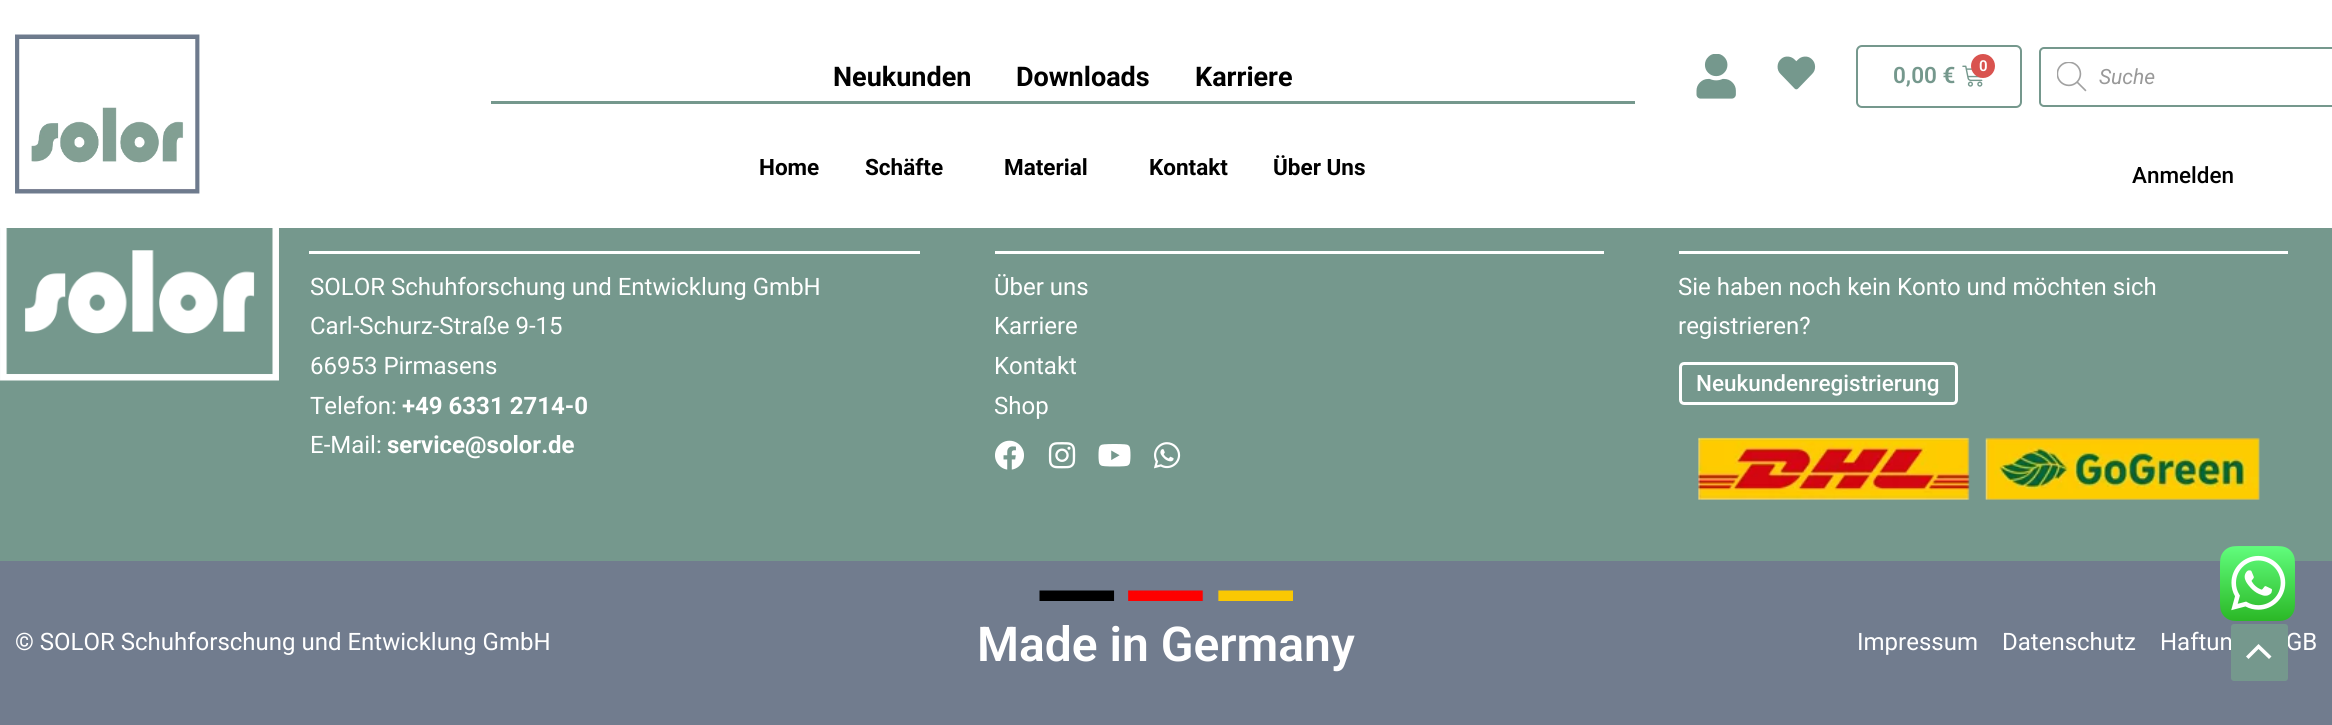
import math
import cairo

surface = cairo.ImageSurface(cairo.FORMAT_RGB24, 2332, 725)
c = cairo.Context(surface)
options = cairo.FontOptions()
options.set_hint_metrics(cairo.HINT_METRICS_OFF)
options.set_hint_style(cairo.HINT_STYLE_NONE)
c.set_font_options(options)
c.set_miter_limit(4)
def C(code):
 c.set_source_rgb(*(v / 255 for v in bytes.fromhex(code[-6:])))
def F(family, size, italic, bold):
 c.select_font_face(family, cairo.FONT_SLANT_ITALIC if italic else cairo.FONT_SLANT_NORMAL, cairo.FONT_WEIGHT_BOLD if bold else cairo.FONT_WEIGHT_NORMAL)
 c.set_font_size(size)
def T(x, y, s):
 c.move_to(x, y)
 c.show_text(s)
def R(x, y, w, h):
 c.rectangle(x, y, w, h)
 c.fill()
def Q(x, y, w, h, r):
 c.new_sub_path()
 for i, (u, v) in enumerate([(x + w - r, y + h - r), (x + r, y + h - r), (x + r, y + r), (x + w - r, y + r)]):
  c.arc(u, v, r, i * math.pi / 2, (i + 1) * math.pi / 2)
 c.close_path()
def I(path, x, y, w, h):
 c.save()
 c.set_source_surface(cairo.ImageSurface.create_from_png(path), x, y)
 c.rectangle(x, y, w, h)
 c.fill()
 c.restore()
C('75988d')
c.paint()
C('ffffff')
R(0,0,2332,228)
I('1.png',15,34,185,160)
C('75988d')
R(491,101,1144,3)
F('Roboto',27,0,1)
C('000000')
T(833,86,'Neukunden')
T(1016,86,'Downloads')
T(1195,86,'Karriere')
F('Roboto',22.5,0,1)
T(759,175,'Home')
T(865,175,'Schäfte')
T(1004,175,'Material')
T(1149,175,'Kontakt')
T(1273,175,'Über Uns')
I('2.png',1696,54,40,45)
I('3.png',1777,56,39,34)
Q(1857,46,164,61,5)
C('75988d')
c.stroke()
F('Roboto SemiBold',22.5,0,0)
T(1893,83,'0,00 €')
I('4.png',1962,65,21,22)
C('d9534f')
c.arc(1983,66,12,0,2 * math.pi)
c.fill()
F('Roboto SemiBold',15,0,0)
C('ffffff')
T(1979,71,'0')
Q(2040,48,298,58,4)
C('75988d')
c.stroke()
I('5.png',2057,62,30,30)
F('Roboto',21,1,0)
C('999999')
T(2099,84,'Suche')
F('Roboto Medium',22.5,0,0)
C('000000')
T(2132,183,'Anmelden')
I('6.png',0,228,279,153)
C('ffffff')
R(309,251,611,3)
F('Roboto',24,0,0)
T(310,295,'SOLOR Schuhforschung und Entwicklung GmbH')
T(310,334,'Carl-Schurz-Straße 9-15')
T(310,374,'66953 Pirmasens')
T(310,414,'Telefon:')
F('Roboto',24,0,1)
T(402,414,'+49 6331 2714-0')
F('Roboto',24,0,0)
T(310,453,'E-Mail:')
F('Roboto',24,0,1)
T(387,453,'service@solor.de')
R(995,251,609,3)
F('Roboto',24,0,0)
T(994,295,'Über uns')
T(994,334,'Karriere')
T(994,374,'Kontakt')
T(994,414,'Shop')
I('7.png',995,440,29,30)
I('8.png',1048,442,28,27)
I('9.png',1098,444,33,23)
I('10.png',1154,442,27,27)
R(1679,251,609,3)
T(1678,295,'Sie haben noch kein Konto und möchten sich')
T(1678,334,'registrieren?')
Q(1680.5,363.5,276,40,3.5)
c.set_line_width(3)
c.stroke()
F('Roboto Medium',22.5,0,0)
T(1696,391,'Neukundenregistrierung')
I('11.png',1698,437,562,63)
C('717c8e')
R(0,561,2332,164)
F('Roboto',24,0,0)
C('ffffff')
T(15,650,'© SOLOR Schuhforschung und Entwicklung GmbH')
I('12.png',1039,590,254,11)
F('Roboto SemiBold',48,0,0)
T(977,661,'Made in Germany')
F('Roboto',24,0,0)
T(1857,650,'Impressum')
T(2002,650,'Datenschutz')
T(2160,650,'Haftun')
T(2286,650,'GB')
I('13.png',2220,546,75,75)
C('75988d')
Q(2231,624,57,57,3)
c.fill()
C('ffffff')
c.new_path()
c.move_to(2271.5,656.5)
c.line_to(2258.5,644)
c.line_to(2246,656.5)
c.line_to(2248.5,659)
c.line_to(2258.5,649)
c.line_to(2269,659)
c.close_path()
c.fill()
surface.write_to_png('o.png')
